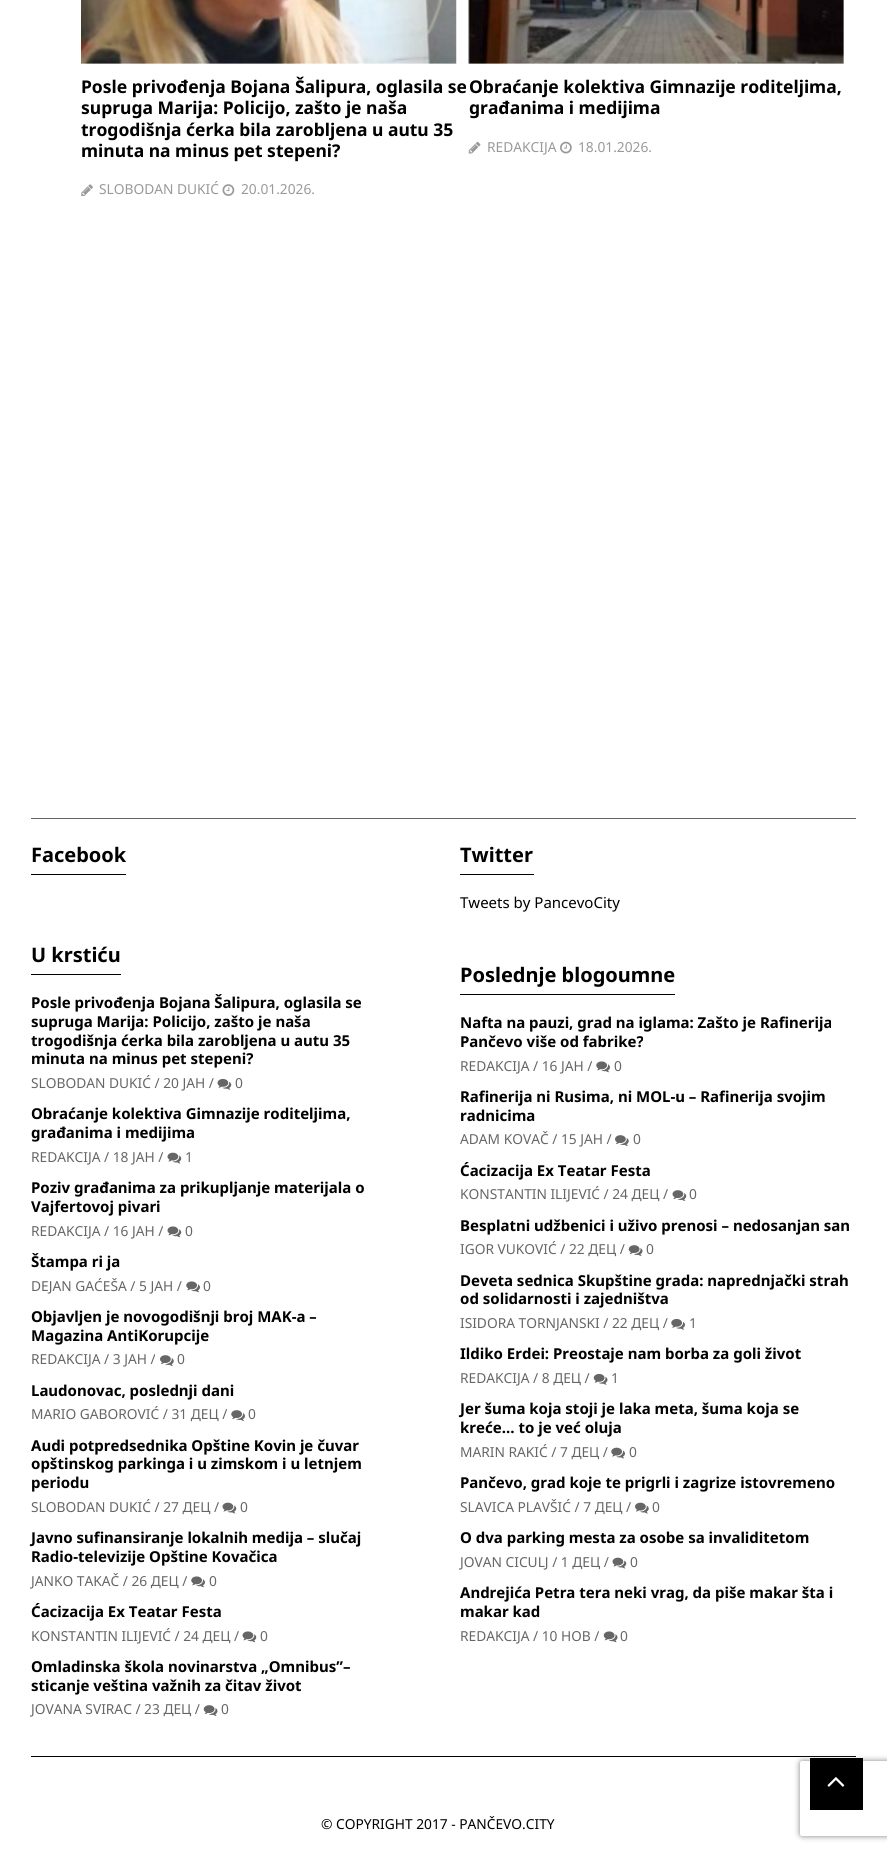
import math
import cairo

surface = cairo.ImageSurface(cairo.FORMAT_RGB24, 887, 1853)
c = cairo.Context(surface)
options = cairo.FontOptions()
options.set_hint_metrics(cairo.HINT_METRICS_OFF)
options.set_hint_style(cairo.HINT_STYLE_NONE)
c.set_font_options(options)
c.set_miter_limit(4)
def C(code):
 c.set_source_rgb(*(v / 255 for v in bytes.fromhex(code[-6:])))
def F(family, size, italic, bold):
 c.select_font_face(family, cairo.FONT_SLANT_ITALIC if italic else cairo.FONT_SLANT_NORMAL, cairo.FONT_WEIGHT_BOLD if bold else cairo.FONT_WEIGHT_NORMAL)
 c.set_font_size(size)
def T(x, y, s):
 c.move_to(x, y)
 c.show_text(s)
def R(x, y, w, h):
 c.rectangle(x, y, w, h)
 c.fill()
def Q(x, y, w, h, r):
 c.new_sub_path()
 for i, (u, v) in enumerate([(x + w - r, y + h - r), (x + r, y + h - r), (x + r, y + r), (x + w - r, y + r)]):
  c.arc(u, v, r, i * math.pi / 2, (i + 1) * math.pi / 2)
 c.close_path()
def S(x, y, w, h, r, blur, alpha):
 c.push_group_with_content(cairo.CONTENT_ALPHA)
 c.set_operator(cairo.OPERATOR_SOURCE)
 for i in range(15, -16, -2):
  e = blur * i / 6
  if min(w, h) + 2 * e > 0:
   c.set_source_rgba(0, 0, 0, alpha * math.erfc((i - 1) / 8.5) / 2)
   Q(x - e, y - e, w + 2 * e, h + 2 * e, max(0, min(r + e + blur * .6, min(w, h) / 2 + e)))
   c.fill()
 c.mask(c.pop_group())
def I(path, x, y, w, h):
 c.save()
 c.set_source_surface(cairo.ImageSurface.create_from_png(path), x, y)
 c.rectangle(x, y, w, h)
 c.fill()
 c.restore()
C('ffffff')
c.paint()
I('1.png',81,0,376,64)
F('Noto Sans',17.5,0,1)
C('000000')
T(81,93,'Posle privođenja Bojana Šalipura, oglasila se')
T(81,114,'supruga Marija: Policijo, zašto je naša')
T(81,136,'trogodišnja ćerka bila zarobljena u autu 35')
T(81,157,'minuta na minus pet stepeni?')
I('2.png',81,184,12,12)
F('Noto Sans',13.75,0,0)
C('999999')
T(99,194,'SLOBODAN DUKIĆ')
I('3.png',222,184,13,12)
T(241,194,'20.01.2026.')
I('4.png',468,0,376,64)
F('Noto Sans',17.5,0,1)
C('000000')
T(469,93,'Obraćanje kolektiva Gimnazije roditeljima,')
T(469,114,'građanima i medijima')
I('5.png',468,141,13,13)
F('Noto Sans',13.75,0,0)
C('999999')
T(487,152,'REDAKCIJA')
I('6.png',560,141,12,13)
T(578,152,'18.01.2026.')
C('666666')
R(31,818,825,1)
C('000000')
R(31,874,95,1)
F('Noto Sans',20,0,1)
T(31,862,'Facebook')
R(460,874,74,1)
T(460,862,'Twitter')
F('Noto Sans',15,0,0)
T(460,908,'Tweets by PancevoCity')
R(31,974,90,1)
F('Noto Sans',20,0,1)
T(31,962,'U krstiću')
F('Noto Sans',15,0,1)
T(31,1008,'Posle privođenja Bojana Šalipura, oglasila se')
T(31,1027,'supruga Marija: Policijo, zašto je naša')
T(31,1046,'trogodišnja ćerka bila zarobljena u autu 35')
T(31,1064,'minuta na minus pet stepeni?')
F('Noto Sans',13.75,0,0)
C('666666')
T(31,1088,'SLOBODAN DUKIĆ / 20 ЈАН /')
I('7.png',217,1078,15,12)
T(235,1088,'0')
F('Noto Sans',15,0,1)
C('000000')
T(31,1119,'Obraćanje kolektiva Gimnazije roditeljima,')
T(31,1138,'građanima i medijima')
F('Noto Sans',13.75,0,0)
C('666666')
T(31,1162,'REDAKCIJA / 18 ЈАН /')
I('8.png',167,1152,15,12)
T(185,1162,'1')
F('Noto Sans',15,0,1)
C('000000')
T(31,1193,'Poziv građanima za prikupljanje materijala o')
T(31,1212,'Vajfertovoj pivari')
F('Noto Sans',13.75,0,0)
C('666666')
T(31,1236,'REDAKCIJA / 16 ЈАН /')
I('9.png',167,1226,15,12)
T(185,1236,'0')
F('Noto Sans',15,0,1)
C('000000')
T(31,1267,'Štampa ri ja')
F('Noto Sans',13.75,0,0)
C('666666')
T(31,1291,'DEJAN GAĆEŠA / 5 ЈАН /')
I('10.png',186,1281,14,12)
T(203,1291,'0')
F('Noto Sans',15,0,1)
C('000000')
T(31,1322,'Objavljen je novogodišnji broj MAK-a –')
T(31,1341,'Magazina AntiKorupcije')
F('Noto Sans',13.75,0,0)
C('666666')
T(31,1364,'REDAKCIJA / 3 ЈАН /')
I('11.png',160,1355,14,11)
T(177,1364,'0')
F('Noto Sans',15,0,1)
C('000000')
T(31,1396,'Laudonovac, poslednji dani')
F('Noto Sans',13.75,0,0)
C('666666')
T(31,1419,'MARIO GABOROVIĆ / 31 ДЕЦ /')
I('12.png',231,1410,14,11)
T(248,1419,'0')
F('Noto Sans',15,0,1)
C('000000')
T(31,1451,'Audi potpredsednika Opštine Kovin je čuvar')
T(31,1469,'opštinskog parkinga i u zimskom i u letnjem')
T(31,1488,'periodu')
F('Noto Sans',13.75,0,0)
C('666666')
T(31,1512,'SLOBODAN DUKIĆ / 27 ДЕЦ /')
I('8.png',222,1502,15,12)
T(240,1512,'0')
F('Noto Sans',15,0,1)
C('000000')
T(31,1543,'Javno sufinansiranje lokalnih medija – slučaj')
T(31,1562,'Radio-televizije Opštine Kovačica')
F('Noto Sans',13.75,0,0)
C('666666')
T(31,1586,'JANKO TAKAČ / 26 ДЕЦ /')
I('10.png',191,1576,14,12)
T(209,1586,'0')
F('Noto Sans',15,0,1)
C('000000')
T(31,1617,'Ćacizacija Ex Teatar Festa')
F('Noto Sans',13.75,0,0)
C('666666')
T(31,1641,'KONSTANTIN ILIJEVIĆ / 24 ДЕЦ /')
I('9.png',242,1631,15,12)
T(260,1641,'0')
F('Noto Sans',15,0,1)
C('000000')
T(31,1672,'Omladinska škola novinarstva „Omnibus”–')
T(31,1691,'sticanje veština važnih za čitav život')
F('Noto Sans',13.75,0,0)
C('666666')
T(31,1714,'JOVANA SVIRAC / 23 ДЕЦ /')
I('13.png',203,1705,15,11)
T(221,1714,'0')
C('000000')
R(460,994,215,1)
F('Noto Sans',20,0,1)
T(460,982,'Poslednje blogoumne')
F('Noto Sans',15,0,1)
T(460,1028,'Nafta na pauzi, grad na iglama: Zašto je Rafinerija')
T(460,1047,'Pančevo više od fabrike?')
F('Noto Sans',13.75,0,0)
C('666666')
T(460,1071,'REDAKCIJA / 16 ЈАН /')
I('10.png',596,1061,14,12)
T(614,1071,'0')
F('Noto Sans',15,0,1)
C('000000')
T(460,1102,'Rafinerija ni Rusima, ni MOL-u – Rafinerija svojim')
T(460,1121,'radnicima')
F('Noto Sans',13.75,0,0)
C('666666')
T(460,1144,'ADAM KOVAČ / 15 ЈАН /')
I('11.png',615,1135,14,11)
T(633,1144,'0')
F('Noto Sans',15,0,1)
C('000000')
T(460,1176,'Ćacizacija Ex Teatar Festa')
F('Noto Sans',13.75,0,0)
C('666666')
T(460,1199,'KONSTANTIN ILIJEVIĆ / 24 ДЕЦ /')
I('14.png',672,1190,15,11)
T(689,1199,'0')
F('Noto Sans',15,0,1)
C('000000')
T(460,1231,'Besplatni udžbenici i uživo prenosi – nedosanjan san')
F('Noto Sans',13.75,0,0)
C('666666')
T(460,1254,'IGOR VUKOVIĆ / 22 ДЕЦ /')
I('13.png',628,1245,15,11)
T(646,1254,'0')
F('Noto Sans',15,0,1)
C('000000')
T(460,1286,'Deveta sednica Skupštine grada: naprednjački strah')
T(460,1304,'od solidarnosti i zajedništva')
F('Noto Sans',13.75,0,0)
C('666666')
T(460,1328,'ISIDORA TORNJANSKI / 22 ДЕЦ /')
I('15.png',671,1318,14,12)
T(689,1328,'1')
F('Noto Sans',15,0,1)
C('000000')
T(460,1359,'Ildiko Erdei: Preostaje nam borba za goli život')
F('Noto Sans',13.75,0,0)
C('666666')
T(460,1383,'REDAKCIJA / 8 ДЕЦ /')
I('16.png',593,1373,15,12)
T(611,1383,'1')
F('Noto Sans',15,0,1)
C('000000')
T(460,1414,'Jer šuma koja stoji je laka meta, šuma koja se')
T(460,1433,'kreće… to je već oluja')
F('Noto Sans',13.75,0,0)
C('666666')
T(460,1457,'MARIN RAKIĆ / 7 ДЕЦ /')
I('17.png',611,1447,14,12)
T(629,1457,'0')
F('Noto Sans',15,0,1)
C('000000')
T(460,1488,'Pančevo, grad koje te prigrli i zagrize istovremeno')
F('Noto Sans',13.75,0,0)
C('666666')
T(460,1512,'SLAVICA PLAVŠIĆ / 7 ДЕЦ /')
I('18.png',635,1502,14,12)
T(652,1512,'0')
F('Noto Sans',15,0,1)
C('000000')
T(460,1543,'O dva parking mesta za osobe sa invaliditetom')
F('Noto Sans',13.75,0,0)
C('666666')
T(460,1567,'JOVAN CICULJ / 1 ДЕЦ /')
I('8.png',612,1557,15,12)
T(630,1567,'0')
F('Noto Sans',15,0,1)
C('000000')
T(460,1598,'Andrejića Petra tera neki vrag, da piše makar šta i')
T(460,1617,'makar kad')
F('Noto Sans',13.75,0,0)
C('666666')
T(460,1641,'REDAKCIJA / 10 НОВ /')
I('19.png',603,1631,15,12)
T(620,1641,'0')
C('000000')
R(31,1756,825,1)
T(321,1829,'© COPYRIGHT 2017 - PANČEVO.CITY')
c.save()
c.set_fill_rule(cairo.FILL_RULE_EVEN_ODD)
c.new_path()
c.move_to(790,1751)
c.line_to(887,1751)
c.line_to(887,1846)
c.line_to(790,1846)
c.close_path()
c.move_to(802.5,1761)
c.line_to(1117.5,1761)
c.curve_to(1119,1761,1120,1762,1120,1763.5)
c.line_to(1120,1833.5)
c.curve_to(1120,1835,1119,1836,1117.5,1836)
c.line_to(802.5,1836)
c.curve_to(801,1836,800,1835,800,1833.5)
c.line_to(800,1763.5)
c.curve_to(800,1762,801,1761,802.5,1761)
c.close_path()
c.clip()
C('808080')
S(800,1761,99,75,2.5,3,1)
c.restore()
R(810,1758,53,52)
I('20.png',827,1777,18,10)
surface.write_to_png('o.png')
